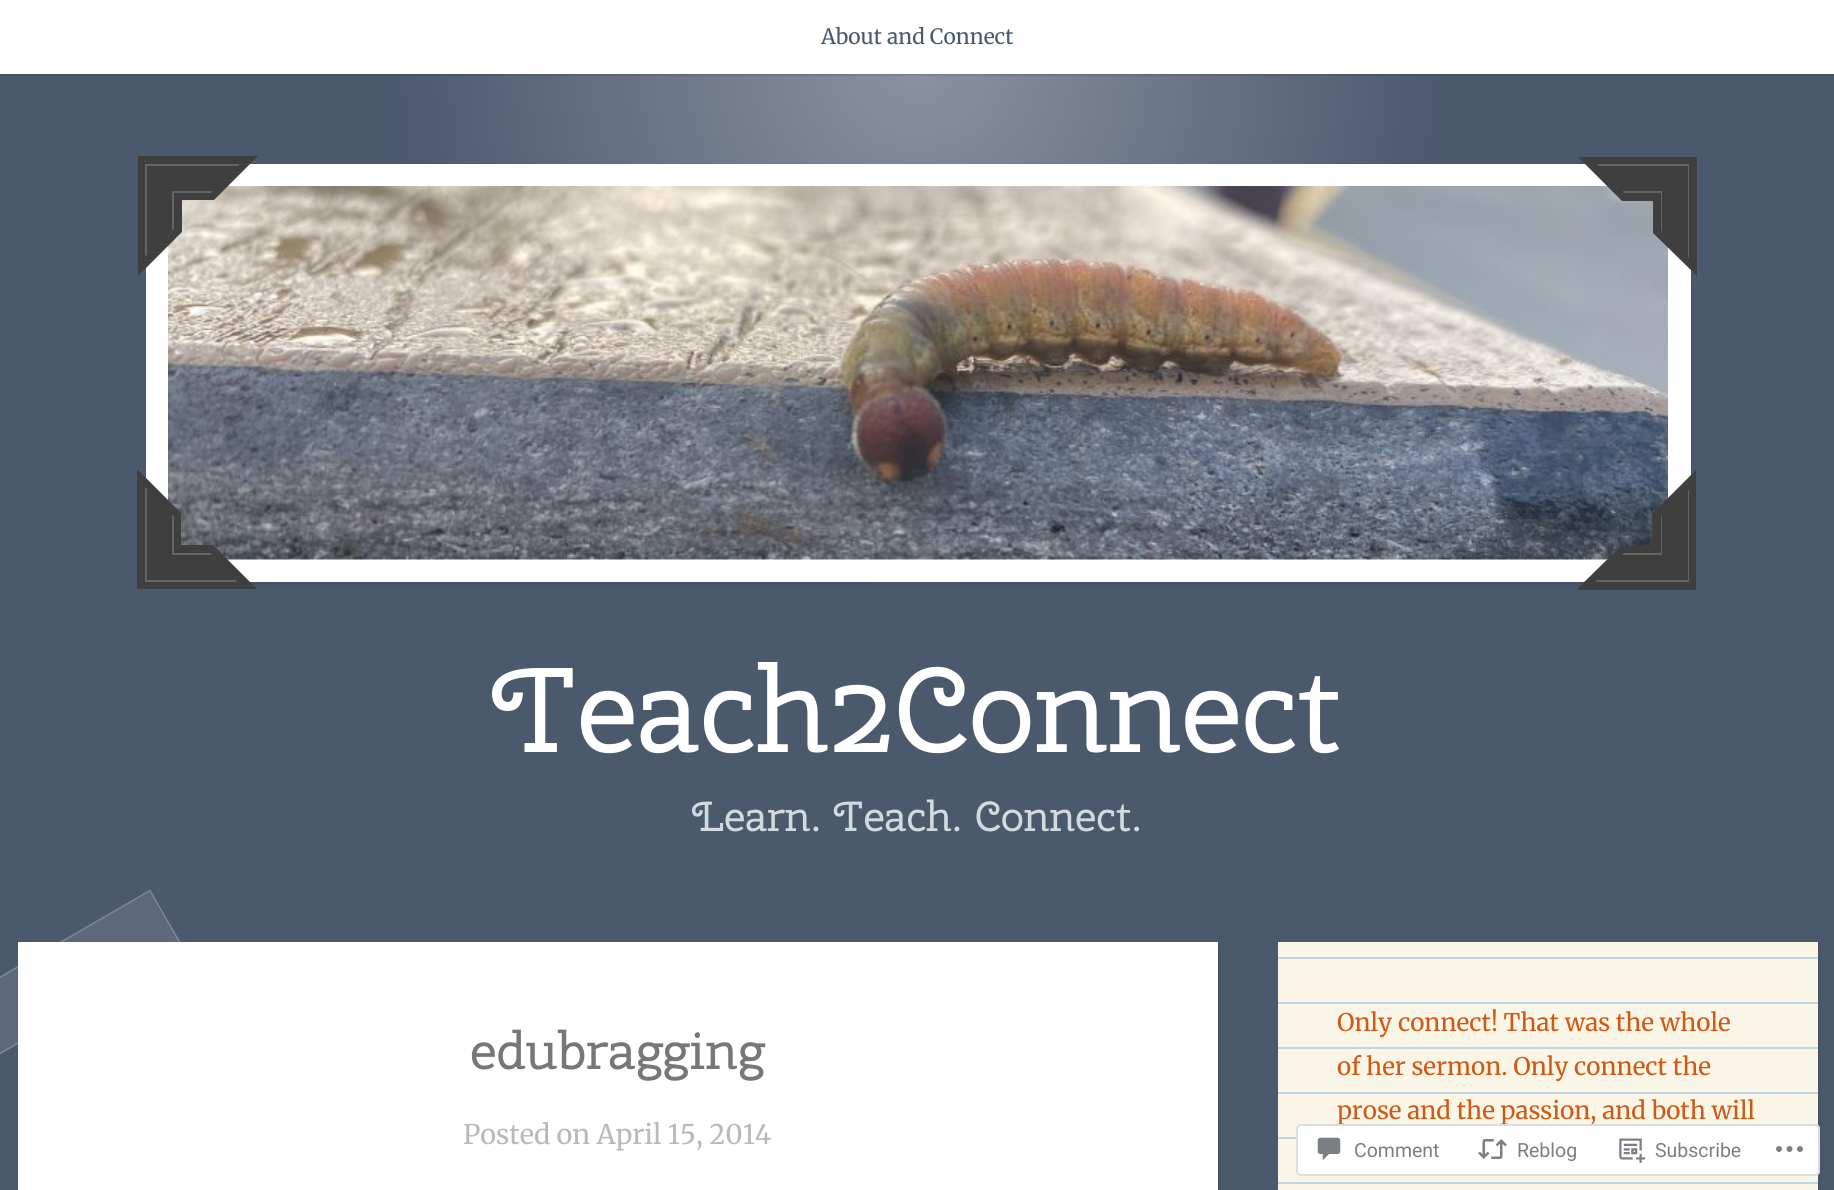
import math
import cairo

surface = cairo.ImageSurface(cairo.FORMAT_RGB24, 1834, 1190)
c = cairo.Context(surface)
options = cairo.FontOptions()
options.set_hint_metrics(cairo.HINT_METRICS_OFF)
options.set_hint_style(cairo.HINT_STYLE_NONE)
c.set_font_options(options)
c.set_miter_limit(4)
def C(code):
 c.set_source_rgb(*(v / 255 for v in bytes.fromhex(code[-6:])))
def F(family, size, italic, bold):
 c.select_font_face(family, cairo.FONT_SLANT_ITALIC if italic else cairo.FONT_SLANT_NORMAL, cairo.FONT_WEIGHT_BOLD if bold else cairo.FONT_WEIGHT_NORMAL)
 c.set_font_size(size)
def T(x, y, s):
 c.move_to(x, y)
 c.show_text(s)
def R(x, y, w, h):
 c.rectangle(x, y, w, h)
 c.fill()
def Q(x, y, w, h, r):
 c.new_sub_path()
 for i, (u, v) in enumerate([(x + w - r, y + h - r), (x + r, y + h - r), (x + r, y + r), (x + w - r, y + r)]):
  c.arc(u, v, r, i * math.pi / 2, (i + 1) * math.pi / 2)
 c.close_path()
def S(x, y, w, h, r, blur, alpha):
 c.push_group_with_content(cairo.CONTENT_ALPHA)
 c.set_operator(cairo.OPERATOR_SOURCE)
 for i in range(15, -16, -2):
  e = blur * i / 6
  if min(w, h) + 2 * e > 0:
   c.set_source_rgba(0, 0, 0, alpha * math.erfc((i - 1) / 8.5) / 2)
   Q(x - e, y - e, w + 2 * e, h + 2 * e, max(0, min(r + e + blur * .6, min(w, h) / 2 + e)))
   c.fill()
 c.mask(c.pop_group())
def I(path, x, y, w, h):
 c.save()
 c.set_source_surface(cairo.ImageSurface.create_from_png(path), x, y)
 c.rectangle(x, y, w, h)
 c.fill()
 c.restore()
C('4b596c')
c.paint()
gradient = cairo.RadialGradient(918,60,0,918,60,1061)
gradient.add_color_stop_rgba(0,0.541,0.576,0.631,1)
gradient.add_color_stop_rgba(.5,0.294,0.345,0.431,1)
gradient.add_color_stop_rgba(1,0.294,0.345,0.431,1)
c.set_source(gradient)
R(395,74,1046,511)
C('000000')
S(2,2,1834,73,0,1,.2)
C('ffffff')
R(0,0,1834,74)
F('Merriweather',21,0,0)
C('4b596c')
T(821,44,'About and Connect')
C('000000')
S(147,165,1545,419,0,1.5,.1)
C('ffffff')
R(146,164,1545,418)
I('1.png',168,186,1500,374)
C('3f3f3f')
c.new_path()
c.move_to(182,200)
c.line_to(214,200)
c.line_to(258,156)
c.line_to(138,156)
c.line_to(138,276)
c.line_to(182,232)
c.close_path()
c.fill()
C('646464')
c.new_path()
c.move_to(195,164)
c.line_to(145,164)
c.line_to(145,256)
c.line_to(147,255)
c.line_to(147,166)
c.line_to(238,166)
c.line_to(240,164)
c.close_path()
c.fill()
c.new_path()
c.move_to(174,191)
c.line_to(172,191)
c.line_to(172,231)
c.line_to(174,229)
c.line_to(174,193)
c.line_to(211,193)
c.line_to(213,191)
c.close_path()
c.fill()
C('3f3f3f')
c.new_path()
c.move_to(1653,201)
c.line_to(1622,201)
c.line_to(1578,157)
c.line_to(1697,157)
c.line_to(1697,276)
c.line_to(1653,233)
c.close_path()
c.fill()
C('646464')
c.new_path()
c.move_to(1689,214)
c.line_to(1689,164)
c.line_to(1597,164)
c.line_to(1599,166)
c.line_to(1688,166)
c.line_to(1688,257)
c.line_to(1689,259)
c.close_path()
c.fill()
c.new_path()
c.move_to(1662,193)
c.line_to(1662,191)
c.line_to(1623,191)
c.line_to(1624,193)
c.line_to(1661,193)
c.line_to(1661,230)
c.line_to(1662,232)
c.close_path()
c.fill()
C('3f3f3f')
c.new_path()
c.move_to(181,545)
c.line_to(213,545)
c.line_to(257,589)
c.line_to(137,589)
c.line_to(137,470)
c.line_to(138,470)
c.line_to(181,513)
c.close_path()
c.fill()
C('646464')
c.new_path()
c.move_to(145,532)
c.line_to(145,582)
c.line_to(237,582)
c.line_to(236,580)
c.line_to(147,580)
c.line_to(147,489)
c.line_to(145,487)
c.close_path()
c.fill()
c.new_path()
c.move_to(172,553)
c.line_to(172,555)
c.line_to(212,555)
c.line_to(210,553)
c.line_to(174,553)
c.line_to(174,516)
c.line_to(172,515)
c.close_path()
c.fill()
c.save()
c.rectangle(1578,470,120,120)
c.clip()
C('3f3f3f')
c.new_path()
c.move_to(1652,546)
c.line_to(1621,546)
c.line_to(1576,590)
c.line_to(1696,590)
c.line_to(1696,470)
c.line_to(1652,514)
c.close_path()
c.fill()
c.restore()
c.new_path()
c.move_to(1640,582)
c.line_to(1689,582)
c.line_to(1689,490)
c.line_to(1688,491)
c.line_to(1688,580)
c.line_to(1597,580)
c.line_to(1595,582)
c.close_path()
c.fill()
c.new_path()
c.move_to(1661,555)
c.line_to(1662,555)
c.line_to(1662,515)
c.line_to(1661,517)
c.line_to(1661,553)
c.line_to(1624,553)
c.line_to(1622,555)
c.close_path()
c.fill()
F('Cherry Swash',120,0,0)
C('ffffff')
T(492,752,'Teach2Connect')
F('Cherry Swash',42,0,0)
C('d1dbdf')
T(692,831,'Learn. Teach. Connect.')
C('000000')
S(20,944,1200,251,0,1.5,.1)
C('ffffff')
R(18,942,1200,248)
c.set_source_rgba(1,1,1,0.1)
c.new_path()
c.move_to(-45,1002)
c.line_to(150,890)
c.line_to(184,948)
c.line_to(-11,1061)
c.close_path()
c.fill()
c.new_path()
c.move_to(-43.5,1002.5)
c.line_to(150,890.5)
c.line_to(183,948)
c.line_to(-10.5,1059.5)
c.close_path()
c.set_source_rgba(1,1,1,0.2)
c.set_line_width(1.5)
c.stroke()
F('Cherry Swash',52.5,0,0)
C('777777')
T(470,1069,'edubragging')
F('Merriweather',27,0,0)
C('b9b9b9')
T(463,1144,'Posted on April 15, 2014')
C('000000')
S(1280,944,540,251,0,1.5,.1)
C('f9f6e7')
R(1278,942,540,248)
C('bfd4e4')
R(1278,957,540,2)
R(1278,1002,540,2)
R(1278,1047,540,2)
R(1278,1092,540,2)
R(1278,1137,540,2)
R(1278,1182,540,2)
F('Merriweather',24.25,0,0)
C('d05914')
T(1337,1031,'Only connect! That was the whole')
T(1337,1075,'of her sermon. Only connect the')
T(1337,1119,'prose and the passion, and both will')
c.set_source_rgba(1,1,1,0.98)
Q(1296,1124,524,52,5)
c.fill()
Q(1297,1125,522,50,4)
c.set_source_rgba(0.863,0.863,0.871,0.98)
c.set_line_width(2)
c.stroke()
I('2.png',1317,1137,24,24)
F('Roboto',19.5,0,0)
C('7b7f84')
T(1354,1157,'Comment')
I('3.png',1478,1139,29,20)
T(1517,1157,'Reblog')
I('4.png',1619,1138,27,25)
T(1655,1157,'Subscribe')
I('5.png',1776,1146,27,6)
surface.write_to_png('o.png')
